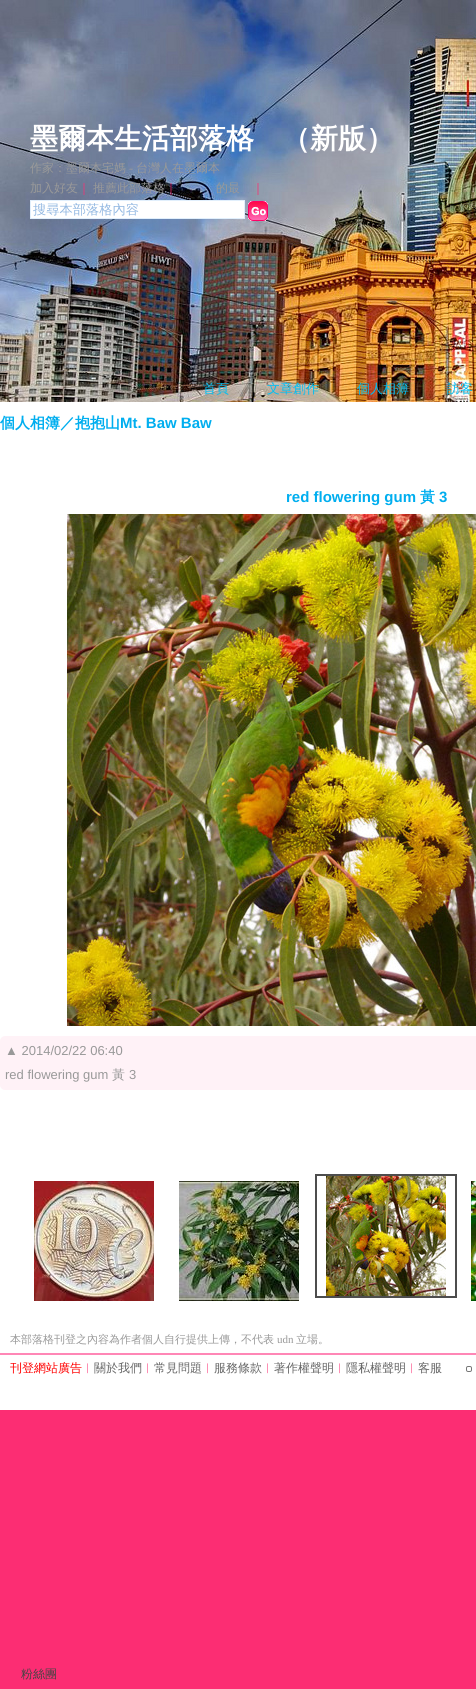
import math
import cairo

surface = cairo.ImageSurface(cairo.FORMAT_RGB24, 476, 1689)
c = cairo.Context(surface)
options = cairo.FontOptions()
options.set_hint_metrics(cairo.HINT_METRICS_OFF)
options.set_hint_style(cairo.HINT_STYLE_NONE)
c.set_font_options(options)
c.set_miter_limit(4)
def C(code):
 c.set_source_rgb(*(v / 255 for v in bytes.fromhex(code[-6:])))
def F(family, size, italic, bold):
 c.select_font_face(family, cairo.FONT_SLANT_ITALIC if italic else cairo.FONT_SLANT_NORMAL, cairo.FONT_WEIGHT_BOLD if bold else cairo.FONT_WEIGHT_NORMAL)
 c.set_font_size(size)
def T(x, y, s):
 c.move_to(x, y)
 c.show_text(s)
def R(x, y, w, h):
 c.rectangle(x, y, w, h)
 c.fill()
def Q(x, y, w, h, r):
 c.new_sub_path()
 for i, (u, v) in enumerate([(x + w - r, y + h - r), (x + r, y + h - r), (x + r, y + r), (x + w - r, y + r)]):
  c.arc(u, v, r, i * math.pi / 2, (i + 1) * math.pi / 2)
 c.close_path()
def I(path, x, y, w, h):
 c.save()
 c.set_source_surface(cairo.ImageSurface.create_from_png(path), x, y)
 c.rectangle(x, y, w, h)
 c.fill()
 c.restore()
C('fc2d73')
c.paint()
C('ffffff')
R(0,402,476,951)
I('1.png',0,0,476,402)
F('WenQuanYi Zen Hei',28,0,1)
T(30,148,'墨爾本生活部落格')
T(282,148,'（新版）')
F('WenQuanYi Zen Hei Medium',12,0,0)
C('999999')
T(30,172,'作家：墨爾本宅媽')
F('Liberation Serif',12,0,0)
T(129,172,'-')
F('WenQuanYi Zen Hei Medium',12,0,0)
T(136,172,'台灣人在墨爾本')
T(30,192,'加入好友')
C('fc2d73')
T(78,192,'｜')
C('999999')
T(93,192,'推薦此部落格')
C('fc2d73')
T(165,192,'｜')
C('999999')
T(216,192,'的最')
C('fc2d73')
T(252,192,'｜')
C('ffffff')
c.rectangle(30.5,200.5,214,18)
c.fill_preserve()
C('e1effc')
c.set_line_width(1)
c.stroke()
F('WenQuanYi Zen Hei Medium',13.25,0,0)
C('94b9e2')
T(33,214,'搜尋本部落格內容')
I('2.png',248,201,20,20)
F('WenQuanYi Zen Hei Medium',13,0,0)
C('00bff3')
T(203,393,'首頁')
T(267,393,'文章創作')
T(357,393,'個人相簿')
T(447,393,'訪客')
F('WenQuanYi Zen Hei',15,0,1)
C('00aeef')
T(0,428,'個人相簿／抱抱山')
F('Liberation Sans',15,0,1)
T(120,428,'Mt. Baw Baw')
T(286,502,'red flowering gum')
F('WenQuanYi Zen Hei',15,0,1)
T(420,502,'黃')
F('Liberation Sans',15,0,1)
T(439,502,'3')
I('3.png',67,514,409,512)
I('4.png',0,1036,5,5)
C('fff2f7')
R(5,1036,471,5)
R(0,1041,476,44)
F('Liberation Sans',13,0,0)
C('999999')
T(5,1055,'▲ 2014/02/22 06:40')
T(5,1079,'red flowering gum')
F('WenQuanYi Zen Hei Medium',13,0,0)
T(112,1079,'黃')
F('Liberation Sans',13,0,0)
T(129,1079,'3')
I('5.png',0,1085,5,5)
C('fff2f7')
R(5,1085,471,5)
I('6.png',34,1181,120,120)
I('7.png',179,1181,120,120)
c.rectangle(316,1175,140,122)
C('4d4d4d')
c.set_line_width(2)
c.stroke()
I('8.png',326,1176,120,120)
I('9.png',471,1181,5,120)
C('ffffff')
R(0,1355,476,55)
C('ff87b6')
R(0,1353,476,2)
F('WenQuanYi Zen Hei Medium',11,0,0)
C('999999')
T(10,1343,'本部落格刊登之內容為作者個人自行提供上傳，不代表')
F('Liberation Serif',11,0,0)
T(277,1343,'udn')
F('WenQuanYi Zen Hei Medium',11,0,0)
T(296,1343,'立場。')
F('WenQuanYi Zen Hei Medium',12,0,0)
C('ff0000')
T(10,1372,'刊登網站廣告')
C('fc2d73')
T(82,1372,'︱')
C('666666')
T(94,1372,'關於我們')
C('fc2d73')
T(142,1372,'︱')
C('666666')
T(154,1372,'常見問題')
C('fc2d73')
T(202,1372,'︱')
C('666666')
T(214,1372,'服務條款')
C('fc2d73')
T(262,1372,'︱')
C('666666')
T(274,1372,'著作權聲明')
C('fc2d73')
T(334,1372,'︱')
C('666666')
T(346,1372,'隱私權聲明')
C('fc2d73')
T(406,1372,'︱')
C('666666')
T(418,1372,'客服')
Q(466.5,1366.5,5,5,1.5)
C('767676')
c.set_line_width(1)
c.stroke()
C('444444')
T(21,1678,'粉絲團')
surface.write_to_png('o.png')
